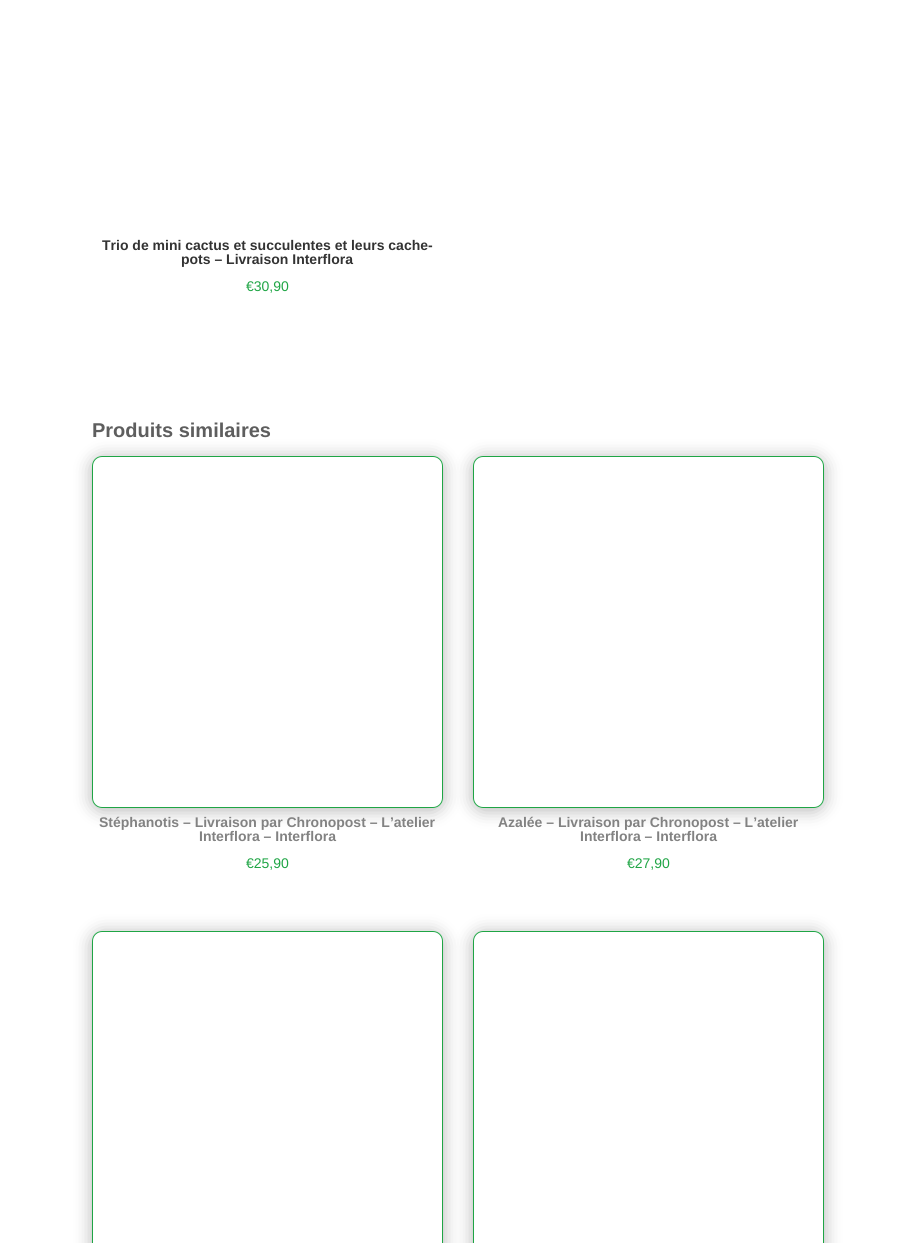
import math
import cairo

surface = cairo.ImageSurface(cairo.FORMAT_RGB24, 916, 1243)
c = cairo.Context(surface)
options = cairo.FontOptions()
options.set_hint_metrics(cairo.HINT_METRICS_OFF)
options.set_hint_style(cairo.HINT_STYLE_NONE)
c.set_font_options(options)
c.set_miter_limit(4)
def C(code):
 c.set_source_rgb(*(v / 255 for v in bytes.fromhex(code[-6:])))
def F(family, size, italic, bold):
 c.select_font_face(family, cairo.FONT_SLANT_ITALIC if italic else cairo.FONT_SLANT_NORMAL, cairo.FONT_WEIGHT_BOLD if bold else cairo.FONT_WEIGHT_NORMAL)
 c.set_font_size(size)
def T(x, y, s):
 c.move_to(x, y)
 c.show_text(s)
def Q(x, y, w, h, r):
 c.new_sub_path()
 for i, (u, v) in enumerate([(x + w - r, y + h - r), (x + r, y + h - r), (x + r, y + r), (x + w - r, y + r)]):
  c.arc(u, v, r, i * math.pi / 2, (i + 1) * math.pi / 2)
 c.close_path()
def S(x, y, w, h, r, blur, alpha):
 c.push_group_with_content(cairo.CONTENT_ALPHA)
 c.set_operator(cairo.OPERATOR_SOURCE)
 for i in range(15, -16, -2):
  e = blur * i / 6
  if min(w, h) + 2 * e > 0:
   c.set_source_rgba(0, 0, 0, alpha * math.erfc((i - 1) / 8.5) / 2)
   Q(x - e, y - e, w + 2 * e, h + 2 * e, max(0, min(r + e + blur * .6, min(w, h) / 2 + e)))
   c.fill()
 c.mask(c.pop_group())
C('ffffff')
c.paint()
F('Liberation Sans',14,0,1)
C('333333')
T(102,250,'Trio de mini cactus et succulentes et leurs cache-')
T(181,264,'pots – Livraison Interflora')
F('Liberation Sans',14,0,0)
C('1fa545')
T(246,291,'€30,90')
F('Liberation Sans',20,0,1)
C('5e5e5e')
T(92,437,'Produits similaires')
c.save()
c.set_fill_rule(cairo.FILL_RULE_EVEN_ODD)
c.new_path()
c.move_to(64,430)
c.line_to(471,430)
c.line_to(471,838)
c.line_to(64,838)
c.close_path()
c.move_to(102,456)
c.line_to(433,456)
c.curve_to(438.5,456,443,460.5,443,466)
c.line_to(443,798)
c.curve_to(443,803.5,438.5,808,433,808)
c.line_to(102,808)
c.curve_to(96.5,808,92,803.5,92,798)
c.line_to(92,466)
c.curve_to(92,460.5,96.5,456,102,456)
c.close_path()
c.clip()
C('000000')
S(92,458,351,352,10,9,.3)
c.restore()
Q(92.5,456.5,350,351,9.5)
C('1fa545')
c.set_line_width(1)
c.stroke()
F('Liberation Sans',14,0,1)
C('828282')
T(99,827,'Stéphanotis – Livraison par Chronopost – L’atelier')
T(199,841,'Interflora – Interflora')
F('Liberation Sans',14,0,0)
C('1fa545')
T(246,868,'€25,90')
c.save()
c.set_fill_rule(cairo.FILL_RULE_EVEN_ODD)
c.new_path()
c.move_to(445,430)
c.line_to(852,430)
c.line_to(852,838)
c.line_to(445,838)
c.close_path()
c.move_to(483,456)
c.line_to(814,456)
c.curve_to(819.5,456,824,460.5,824,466)
c.line_to(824,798)
c.curve_to(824,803.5,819.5,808,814,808)
c.line_to(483,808)
c.curve_to(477.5,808,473,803.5,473,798)
c.line_to(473,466)
c.curve_to(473,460.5,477.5,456,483,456)
c.close_path()
c.clip()
C('000000')
S(473,458,351,352,10,9,.3)
c.restore()
Q(473.5,456.5,350,351,9.5)
c.stroke()
F('Liberation Sans',14,0,1)
C('828282')
T(498,827,'Azalée – Livraison par Chronopost – L’atelier')
T(580,841,'Interflora – Interflora')
F('Liberation Sans',14,0,0)
C('1fa545')
T(627,868,'€27,90')
c.save()
c.set_fill_rule(cairo.FILL_RULE_EVEN_ODD)
c.new_path()
c.move_to(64,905)
c.line_to(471,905)
c.line_to(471,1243)
c.line_to(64,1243)
c.close_path()
c.move_to(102,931)
c.line_to(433,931)
c.curve_to(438.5,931,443,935.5,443,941)
c.line_to(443,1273)
c.curve_to(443,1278.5,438.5,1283,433,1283)
c.line_to(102,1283)
c.curve_to(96.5,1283,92,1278.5,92,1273)
c.line_to(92,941)
c.curve_to(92,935.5,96.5,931,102,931)
c.close_path()
c.clip()
C('000000')
S(92,933,351,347,10,9,.3)
c.restore()
Q(92.5,931.5,350,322,9.5)
c.stroke()
c.save()
c.set_fill_rule(cairo.FILL_RULE_EVEN_ODD)
c.new_path()
c.move_to(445,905)
c.line_to(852,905)
c.line_to(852,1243)
c.line_to(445,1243)
c.close_path()
c.move_to(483,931)
c.line_to(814,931)
c.curve_to(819.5,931,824,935.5,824,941)
c.line_to(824,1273)
c.curve_to(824,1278.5,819.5,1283,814,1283)
c.line_to(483,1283)
c.curve_to(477.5,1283,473,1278.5,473,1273)
c.line_to(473,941)
c.curve_to(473,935.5,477.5,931,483,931)
c.close_path()
c.clip()
C('000000')
S(473,933,351,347,10,9,.3)
c.restore()
Q(473.5,931.5,350,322,9.5)
c.stroke()
surface.write_to_png('o.png')
